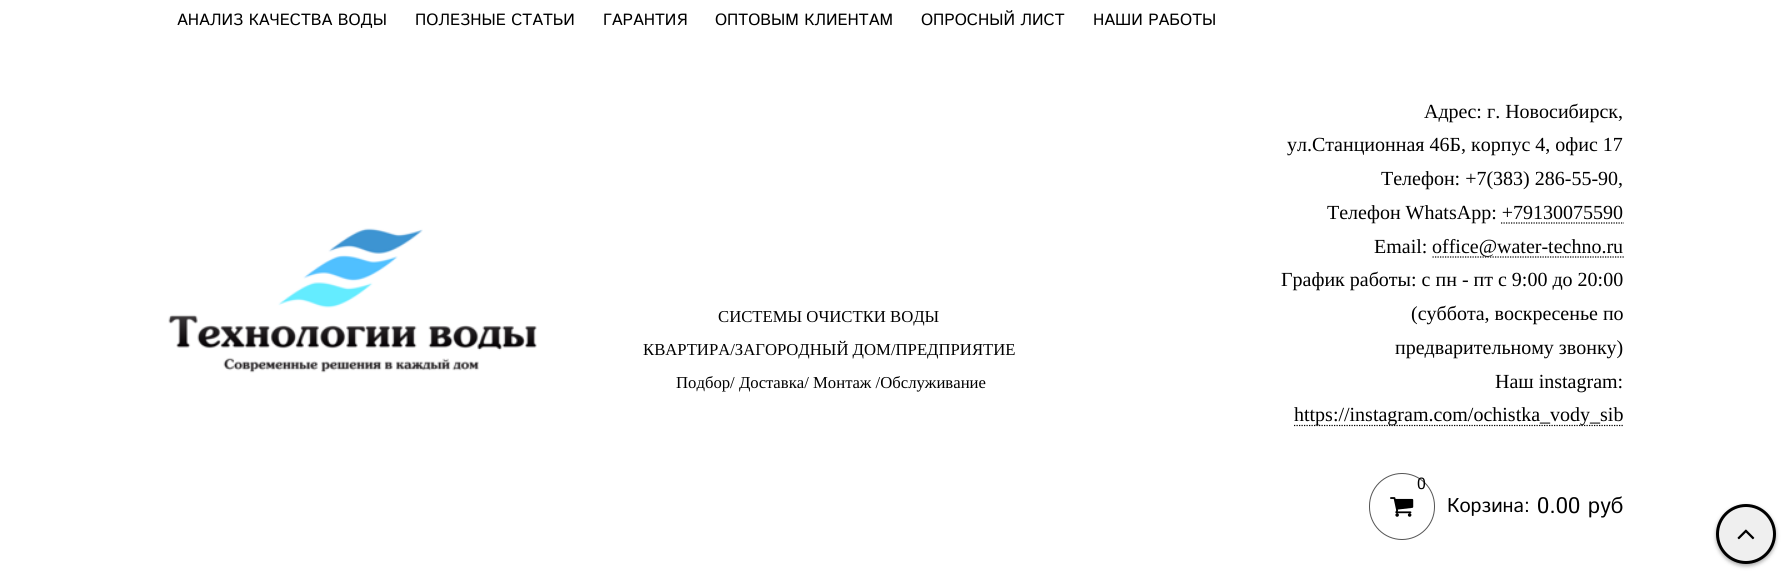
import math
import cairo

surface = cairo.ImageSurface(cairo.FORMAT_RGB24, 1786, 573)
c = cairo.Context(surface)
options = cairo.FontOptions()
options.set_hint_metrics(cairo.HINT_METRICS_OFF)
options.set_hint_style(cairo.HINT_STYLE_NONE)
c.set_font_options(options)
c.set_miter_limit(4)
def C(code):
 c.set_source_rgb(*(v / 255 for v in bytes.fromhex(code[-6:])))
def F(family, size, italic, bold):
 c.select_font_face(family, cairo.FONT_SLANT_ITALIC if italic else cairo.FONT_SLANT_NORMAL, cairo.FONT_WEIGHT_BOLD if bold else cairo.FONT_WEIGHT_NORMAL)
 c.set_font_size(size)
def T(x, y, s):
 c.move_to(x, y)
 c.show_text(s)
def Q(x, y, w, h, r):
 c.new_sub_path()
 for i, (u, v) in enumerate([(x + w - r, y + h - r), (x + r, y + h - r), (x + r, y + r), (x + w - r, y + r)]):
  c.arc(u, v, r, i * math.pi / 2, (i + 1) * math.pi / 2)
 c.close_path()
def S(x, y, w, h, r, blur, alpha):
 c.push_group_with_content(cairo.CONTENT_ALPHA)
 c.set_operator(cairo.OPERATOR_SOURCE)
 for i in range(15, -16, -2):
  e = blur * i / 6
  if min(w, h) + 2 * e > 0:
   c.set_source_rgba(0, 0, 0, alpha * math.erfc((i - 1) / 8.5) / 2)
   Q(x - e, y - e, w + 2 * e, h + 2 * e, max(0, min(r + e + blur * .6, min(w, h) / 2 + e)))
   c.fill()
 c.mask(c.pop_group())
def I(path, x, y, w, h):
 c.save()
 c.set_source_surface(cairo.ImageSurface.create_from_png(path), x, y)
 c.rectangle(x, y, w, h)
 c.fill()
 c.restore()
C('ffffff')
c.paint()
F('Istok Web',16.25,0,0)
C('000000')
T(177,25,'АНАЛИЗ КАЧЕСТВА ВОДЫ')
T(415,25,'ПОЛЕЗНЫЕ СТАТЬИ')
T(603,25,'ГАРАНТИЯ')
T(715,25,'ОПТОВЫМ КЛИЕНТАМ')
T(921,25,'ОПРОСНЫЙ ЛИСТ')
T(1093,25,'НАШИ РАБОТЫ')
I('1.png',168,228,369,145)
F('Liberation Serif',16.7,0,0)
T(718,322,'СИСТЕМЫ ОЧИСТКИ ВОДЫ')
T(643,355,'КВАРТИРА/ЗАГОРОДНЫЙ ДОМ/ПРЕДПРИЯТИЕ')
T(676,388,'Подбор/ Доставка/ Монтаж /Обслуживание')
F('Liberation Serif',20,0,0)
T(1424,118,'Адрес: г. Новосибирск,')
T(1287,151,'ул.Станционная 46Б, корпус 4, офис 17')
T(1381,185,'Телефон: +7(383) 286-55-90,')
T(1327,219,'Телефон WhatsApp: +79130075590')
c.new_path()
c.move_to(1501,223)
c.line_to(1624,223)
c.set_line_width(1.2)
c.set_dash([1.25,1.25])
c.stroke()
T(1374,253,'Email:')
c.new_path()
c.move_to(1432.5,257)
c.line_to(1624,257)
c.stroke()
T(1432,253,'office@water-techno.ru')
T(1281,286,'График работы: с пн - пт с 9:00 до 20:00')
T(1411,320,'(суббота, воскресенье по')
T(1395,354,'предварительному звонку)')
T(1495,388,'Наш instagram:')
c.new_path()
c.move_to(1294,425.5)
c.line_to(1624,425.5)
c.stroke()
T(1294,421,'https://instagram.com/ochistka_vody_sib')
Q(1369.5,473.5,65,66,32.5)
C('555555')
c.set_line_width(1)
c.set_dash([])
c.stroke()
F('Istok Web',16.25,0,0)
C('000000')
T(1417,489,'0')
I('2.png',1390,497,24,20)
F('Istok Web',20,0,0)
T(1447,512,'Корзина:')
F('Istok Web',22.5,0,0)
T(1537,513,'0.00 руб')
C('333333')
S(1716,506,60,60,30,2,.42)
C('efefef')
c.arc(1746,534,28.5,0,2 * math.pi)
c.fill_preserve()
C('000000')
c.set_line_width(3)
c.stroke()
I('3.png',1737,529,18,11)
surface.write_to_png('o.png')
